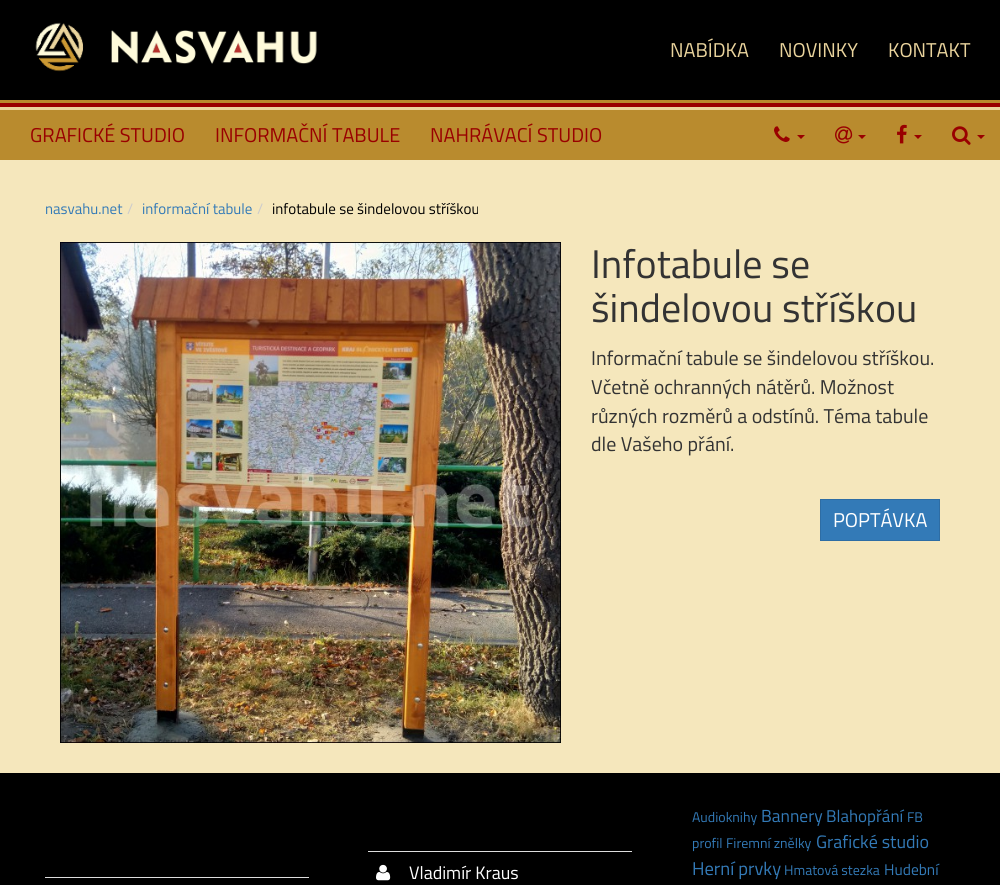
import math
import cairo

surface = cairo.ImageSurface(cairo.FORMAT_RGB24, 1000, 885)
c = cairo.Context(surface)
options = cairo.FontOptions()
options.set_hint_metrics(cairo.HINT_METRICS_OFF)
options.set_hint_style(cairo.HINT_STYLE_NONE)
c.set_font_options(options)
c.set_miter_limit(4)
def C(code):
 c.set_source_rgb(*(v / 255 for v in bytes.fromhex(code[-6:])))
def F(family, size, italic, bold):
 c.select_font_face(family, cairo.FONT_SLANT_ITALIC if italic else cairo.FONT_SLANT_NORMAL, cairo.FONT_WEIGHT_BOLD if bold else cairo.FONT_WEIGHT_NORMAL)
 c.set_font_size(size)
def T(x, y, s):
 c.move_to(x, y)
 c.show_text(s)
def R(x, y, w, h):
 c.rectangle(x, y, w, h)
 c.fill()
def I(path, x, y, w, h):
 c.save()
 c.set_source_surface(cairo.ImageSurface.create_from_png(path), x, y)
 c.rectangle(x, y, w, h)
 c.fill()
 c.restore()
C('f5e7bc')
c.paint()
C('000000')
R(0,0,1000,100)
C('b98b2e')
R(0,100,1000,3)
I('1.png',35,22,282,50)
F('Titillium Web',20,0,0)
C('ead49d')
T(670,57,'NABÍDKA')
T(779,57,'NOVINKY')
T(888,57,'KONTAKT')
C('990000')
R(0,103,1000,4)
C('b98b2e')
R(0,110,1000,50)
C('ead49d')
R(0,107,1000,3)
C('990000')
T(30,142,'GRAFICKÉ STUDIO')
T(215,142,'INFORMAČNÍ TABULE')
T(430,142,'NAHRÁVACÍ STUDIO')
I('2.png',774,126,16,16)
c.new_path()
c.move_to(797,135)
c.line_to(805,135)
c.line_to(801,139)
c.close_path()
c.fill()
I('3.png',835,126,18,18)
c.new_path()
c.move_to(858,135)
c.line_to(866,135)
c.line_to(862,139)
c.close_path()
c.fill()
I('4.png',897,124,10,20)
c.new_path()
c.move_to(914,135)
c.line_to(922,135)
c.line_to(918,139)
c.close_path()
c.fill()
I('5.png',952,126,19,19)
c.new_path()
c.move_to(977,135)
c.line_to(985,135)
c.line_to(981,139)
c.close_path()
c.fill()
F('Titillium Web',15,0,0)
C('337ab7')
T(45,214,'nasvahu.net')
C('cccccc')
T(127,214,'/')
C('337ab7')
T(142,214,'informační tabule')
C('cccccc')
T(257,214,'/')
C('000000')
T(272,214,'infotabule se šindelovou stříškou')
I('6.png',60,242,501,501)
F('Titillium Web',40,0,0)
C('333333')
T(591,278,'Infotabule se')
T(591,322,'šindelovou stříškou')
F('Titillium Web',20,0,0)
T(591,365,'Informační tabule se šindelovou stříškou.')
T(591,394,'Včetně ochranných nátěrů. Možnost')
T(591,423,'různých rozměrů a odstínů. Téma tabule')
T(591,451,'dle Vašeho přání.')
C('337ab7')
c.rectangle(820.5,499.5,119,41)
c.fill_preserve()
C('2e6da4')
c.set_line_width(1)
c.stroke()
C('ffffff')
T(833,527,'POPTÁVKA')
C('000000')
R(0,773,1000,112)
C('dddddd')
R(45,877,264,1)
I('7.png',376,864,15,17)
R(368,851,264,1)
F('Titillium Web',18,0,0)
C('ffffff')
T(409,879,'Vladimír Kraus')
F('Titillium Web',14,0,0)
C('337ab7')
T(692,822,'Audioknihy')
F('Titillium Web',17.5,0,0)
T(761,822,'Bannery')
F('Titillium Web',17,0,0)
T(826,822,'Blahopřání')
F('Titillium Web',14,0,0)
T(907,822,'FB')
T(692,848,'profil')
T(726,848,'Firemní znělky')
F('Titillium Web',18,0,0)
T(816,848,'Grafické studio')
F('Titillium Web',18.5,0,0)
T(692,875,'Herní prvky')
F('Titillium Web',14,0,0)
T(784,875,'Hmatová stezka')
F('Titillium Web',15.5,0,0)
T(884,875,'Hudební')
surface.write_to_png('o.png')
